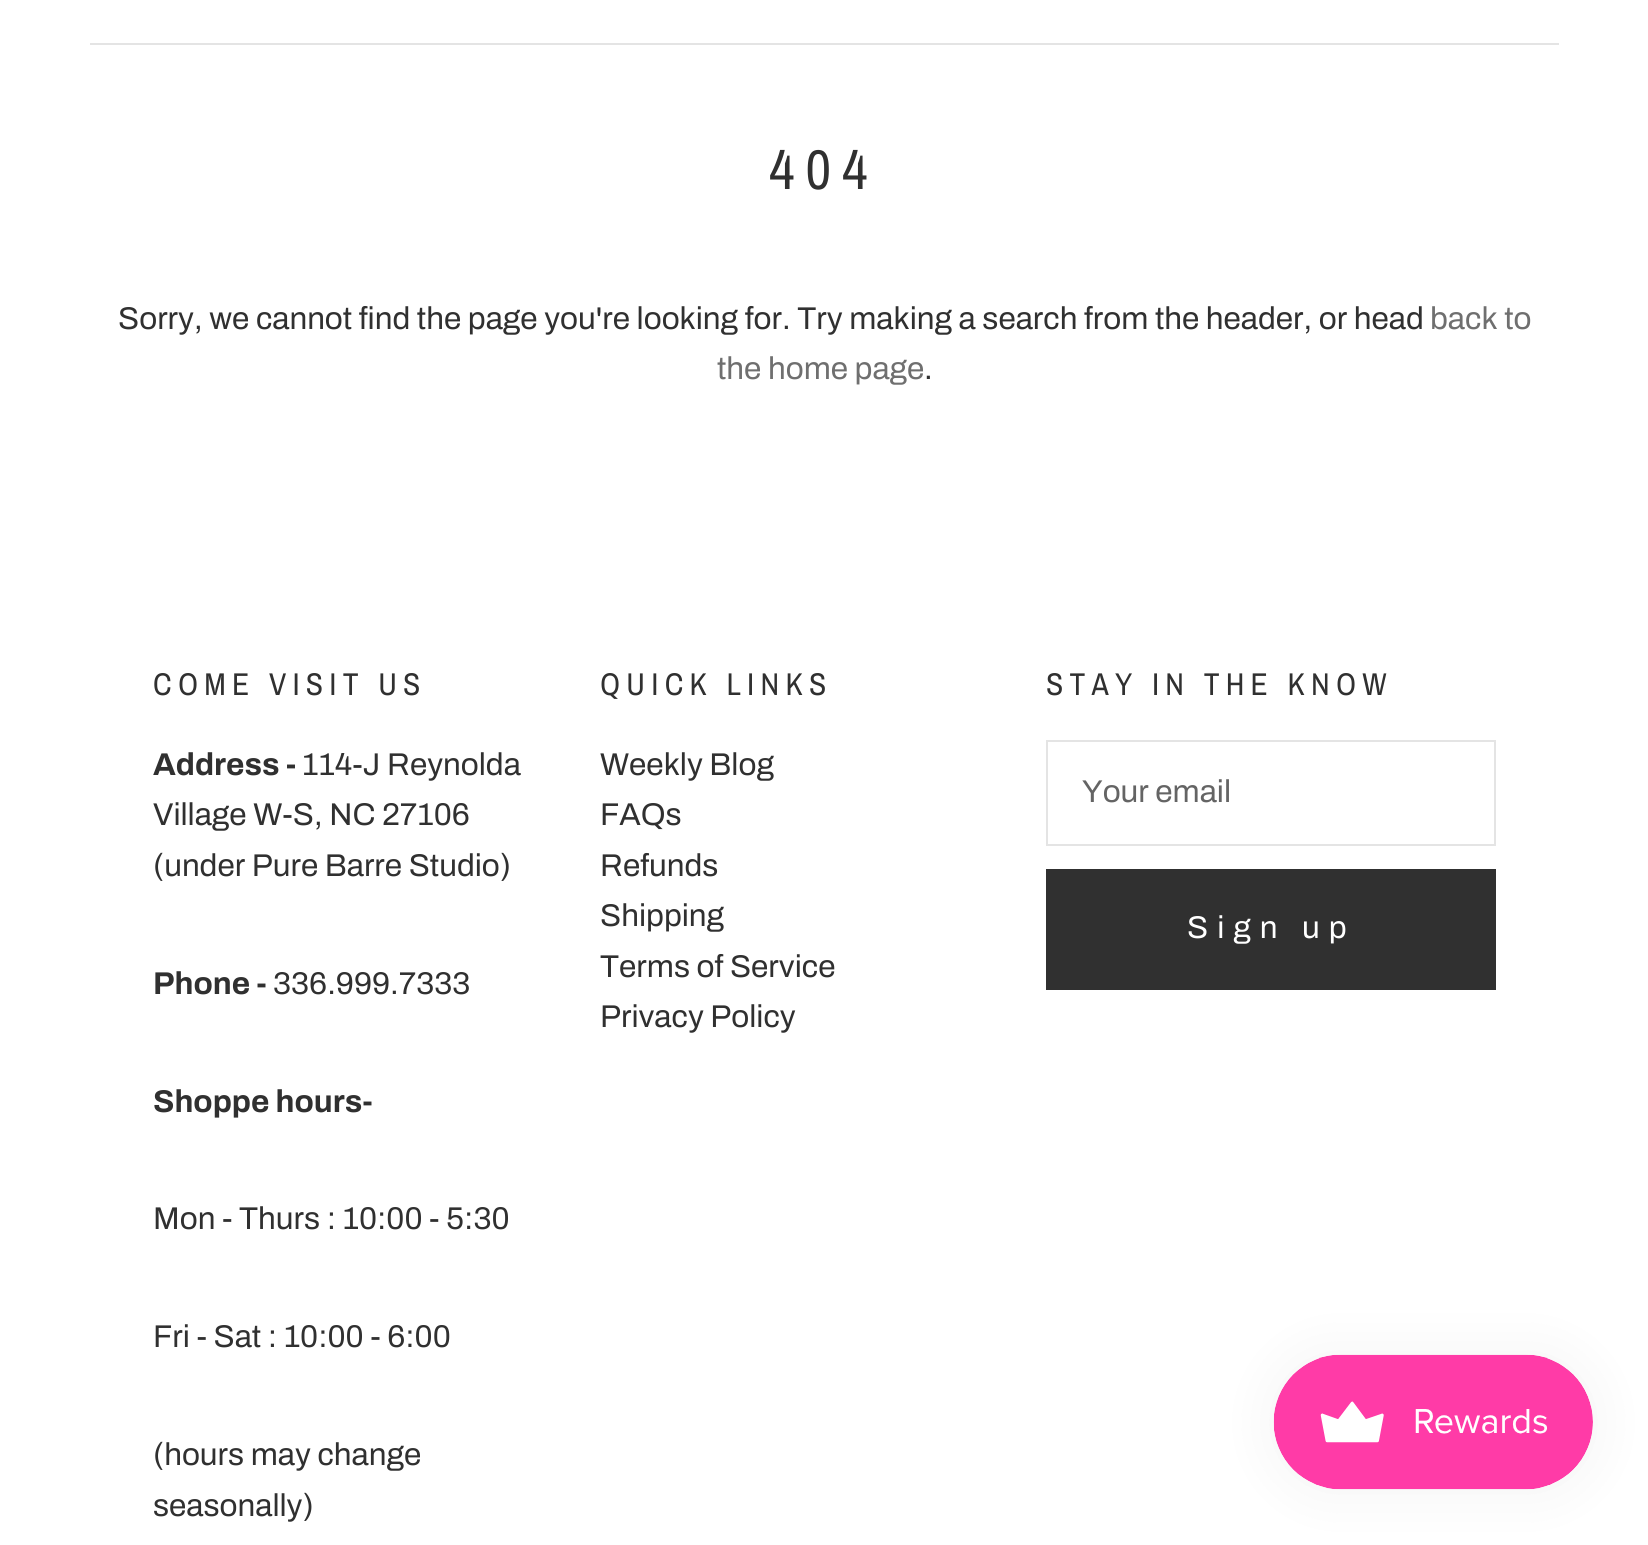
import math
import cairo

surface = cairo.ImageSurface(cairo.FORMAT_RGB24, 1648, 1545)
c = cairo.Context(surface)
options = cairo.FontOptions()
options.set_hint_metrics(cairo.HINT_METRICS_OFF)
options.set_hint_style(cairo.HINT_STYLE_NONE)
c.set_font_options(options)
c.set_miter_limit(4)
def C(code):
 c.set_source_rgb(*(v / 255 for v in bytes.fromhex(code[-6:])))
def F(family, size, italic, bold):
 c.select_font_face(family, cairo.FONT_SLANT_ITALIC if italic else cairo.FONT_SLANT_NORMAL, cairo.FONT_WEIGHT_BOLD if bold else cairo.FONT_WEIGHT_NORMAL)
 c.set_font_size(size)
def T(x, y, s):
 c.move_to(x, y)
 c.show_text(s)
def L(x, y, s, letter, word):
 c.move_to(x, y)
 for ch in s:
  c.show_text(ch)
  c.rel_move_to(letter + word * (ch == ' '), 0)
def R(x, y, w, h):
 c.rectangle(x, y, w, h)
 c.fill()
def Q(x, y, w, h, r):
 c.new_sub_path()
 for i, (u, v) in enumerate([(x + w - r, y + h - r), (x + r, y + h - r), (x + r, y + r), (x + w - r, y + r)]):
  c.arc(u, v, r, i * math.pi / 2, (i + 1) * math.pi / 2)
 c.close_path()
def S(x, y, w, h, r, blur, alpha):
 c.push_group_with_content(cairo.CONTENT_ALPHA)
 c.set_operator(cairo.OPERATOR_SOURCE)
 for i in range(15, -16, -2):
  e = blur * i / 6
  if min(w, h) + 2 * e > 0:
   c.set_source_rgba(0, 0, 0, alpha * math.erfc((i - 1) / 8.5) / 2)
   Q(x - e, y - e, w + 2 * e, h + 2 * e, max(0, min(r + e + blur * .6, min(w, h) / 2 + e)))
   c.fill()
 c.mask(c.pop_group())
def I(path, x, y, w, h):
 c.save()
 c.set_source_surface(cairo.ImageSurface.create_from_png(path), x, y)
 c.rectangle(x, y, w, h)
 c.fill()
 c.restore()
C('ffffff')
c.paint()
C('e4e4e4')
R(90,43,1469,2)
F('Archivo Narrow',56,0,0)
C('303030')
L(769,189,'404',11,0)
F('Archivo',31.5,0,0)
T(118,329,'Sorry, we cannot find the page you\'re looking for. Try making a search from the header, or head')
C('6f6f6f')
T(1430,329,'back to')
T(717,379,'the home page')
C('303030')
T(924,379,'.')
F('Archivo Narrow',31.5,0,0)
L(153,695,'COME VISIT US',6.25,0)
F('Archivo',31.5,0,1)
T(153,775,'Address -')
F('Archivo',31.5,0,0)
T(302,775,'114-J Reynolda')
T(153,825,'Village W-S, NC 27106')
T(153,876,'(under Pure Barre Studio)')
F('Archivo',31.5,0,1)
T(153,994,'Phone -')
F('Archivo',31.5,0,0)
T(273,994,'336.999.7333')
F('Archivo',31.5,0,1)
T(153,1112,'Shoppe hours-')
F('Archivo',31.5,0,0)
T(153,1229,'Mon - Thurs : 10:00 - 5:30')
T(153,1347,'Fri - Sat : 10:00 - 6:00')
T(153,1465,'(hours may change')
T(153,1516,'seasonally)')
F('Archivo Narrow',31.5,0,0)
L(600,695,'QUICK LINKS',6.25,0)
F('Archivo',31.5,0,0)
T(600,775,'Weekly Blog')
T(600,825,'FAQs')
T(600,876,'Refunds')
T(600,926,'Shipping')
T(600,977,'Terms of Service')
T(600,1027,'Privacy Policy')
F('Archivo Narrow',31.5,0,0)
L(1046,695,'STAY IN THE KNOW',6.25,0)
c.rectangle(1047,741,448,104)
C('e4e4e4')
c.stroke()
F('Archivo',31.5,0,0)
C('646464')
T(1082,802,'Your email')
C('303030')
R(1046,869,450,121)
C('ffffff')
L(1187,938,'Sign up',9,0)
C('000000')
S(1274,1355,319,135,67.5,28,.05)
I('1.png',1273,1354,320,136)
surface.write_to_png('o.png')
